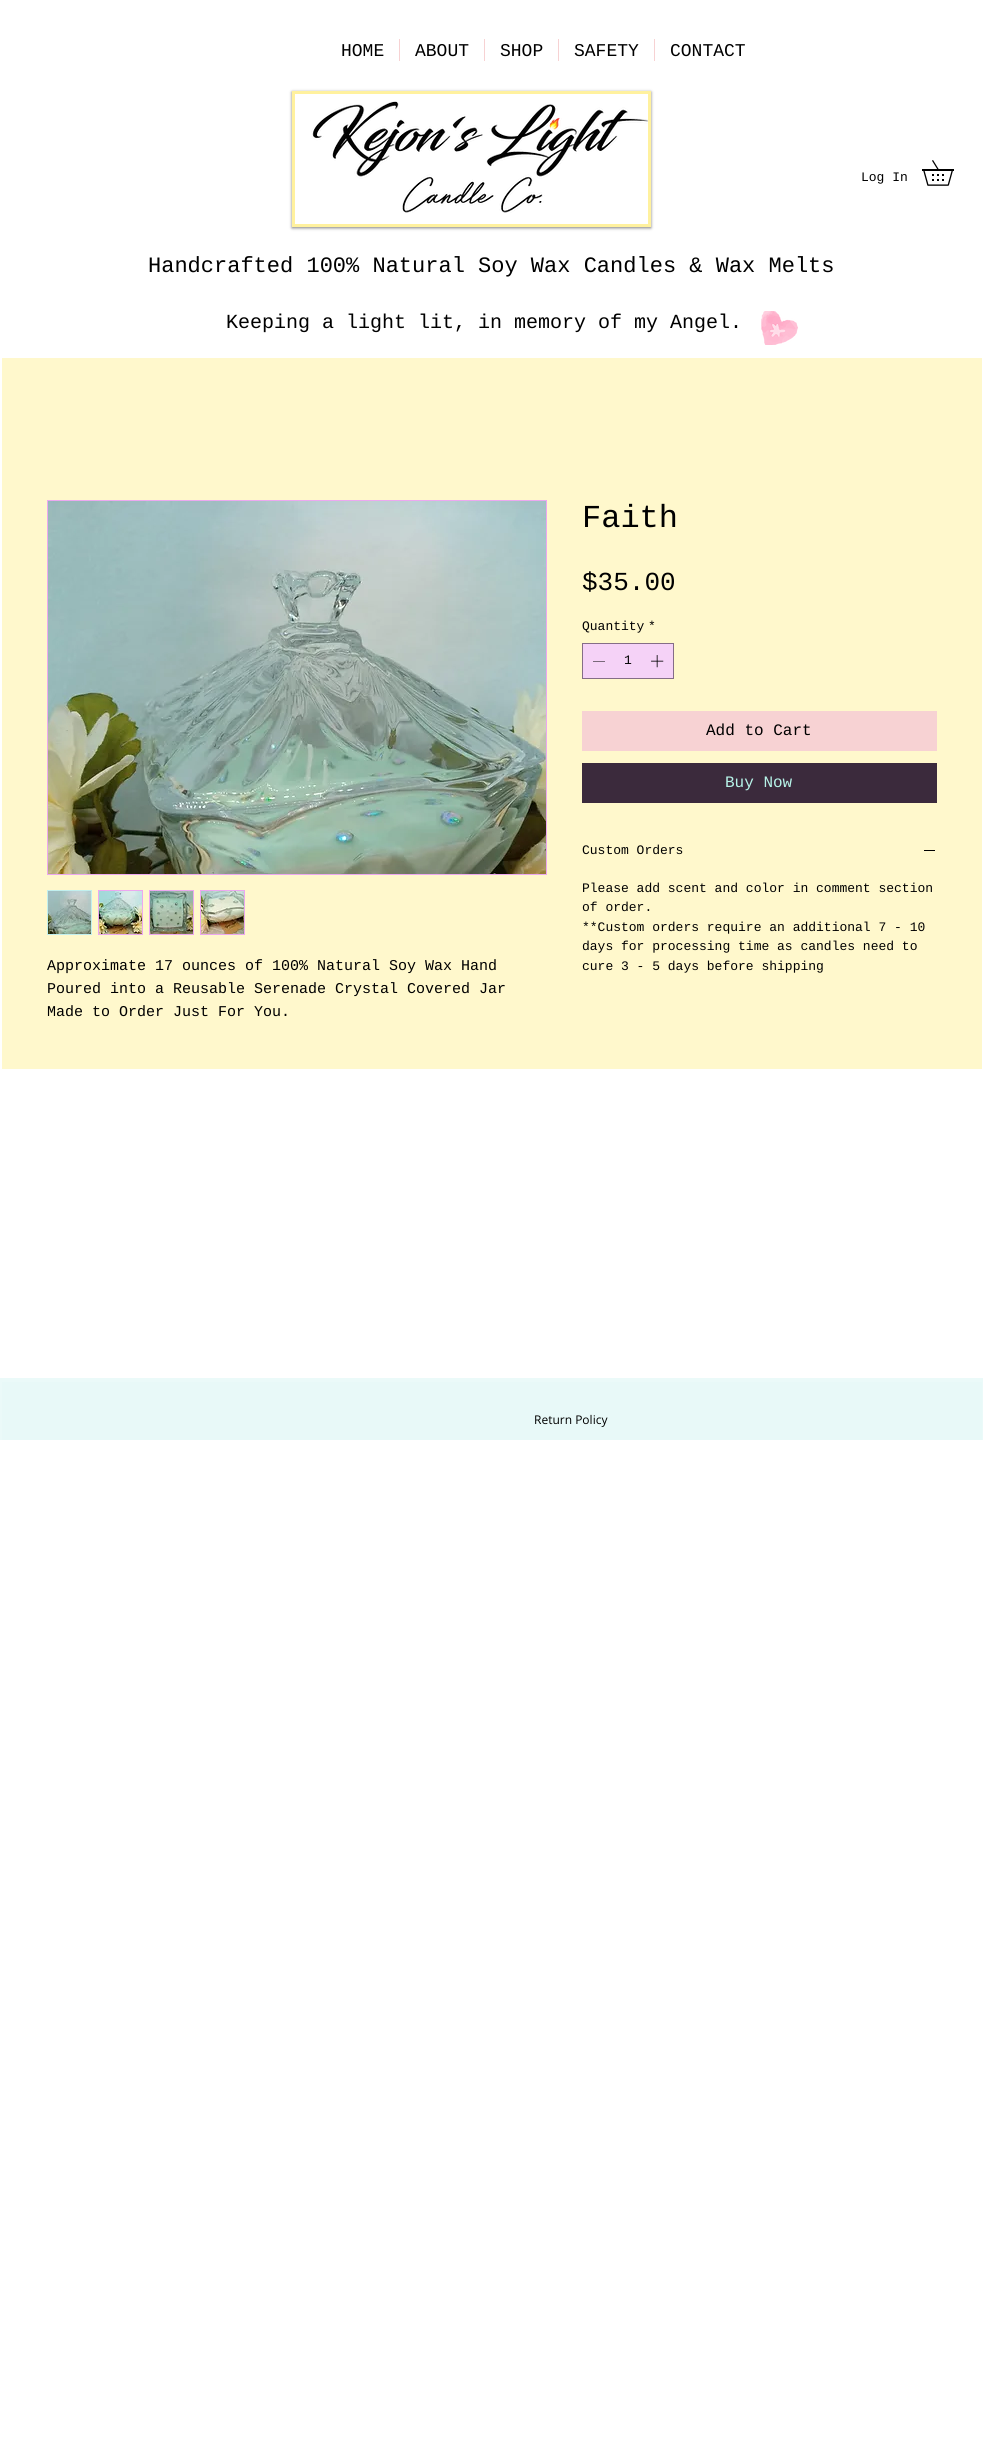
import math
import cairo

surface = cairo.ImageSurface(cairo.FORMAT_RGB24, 983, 2440)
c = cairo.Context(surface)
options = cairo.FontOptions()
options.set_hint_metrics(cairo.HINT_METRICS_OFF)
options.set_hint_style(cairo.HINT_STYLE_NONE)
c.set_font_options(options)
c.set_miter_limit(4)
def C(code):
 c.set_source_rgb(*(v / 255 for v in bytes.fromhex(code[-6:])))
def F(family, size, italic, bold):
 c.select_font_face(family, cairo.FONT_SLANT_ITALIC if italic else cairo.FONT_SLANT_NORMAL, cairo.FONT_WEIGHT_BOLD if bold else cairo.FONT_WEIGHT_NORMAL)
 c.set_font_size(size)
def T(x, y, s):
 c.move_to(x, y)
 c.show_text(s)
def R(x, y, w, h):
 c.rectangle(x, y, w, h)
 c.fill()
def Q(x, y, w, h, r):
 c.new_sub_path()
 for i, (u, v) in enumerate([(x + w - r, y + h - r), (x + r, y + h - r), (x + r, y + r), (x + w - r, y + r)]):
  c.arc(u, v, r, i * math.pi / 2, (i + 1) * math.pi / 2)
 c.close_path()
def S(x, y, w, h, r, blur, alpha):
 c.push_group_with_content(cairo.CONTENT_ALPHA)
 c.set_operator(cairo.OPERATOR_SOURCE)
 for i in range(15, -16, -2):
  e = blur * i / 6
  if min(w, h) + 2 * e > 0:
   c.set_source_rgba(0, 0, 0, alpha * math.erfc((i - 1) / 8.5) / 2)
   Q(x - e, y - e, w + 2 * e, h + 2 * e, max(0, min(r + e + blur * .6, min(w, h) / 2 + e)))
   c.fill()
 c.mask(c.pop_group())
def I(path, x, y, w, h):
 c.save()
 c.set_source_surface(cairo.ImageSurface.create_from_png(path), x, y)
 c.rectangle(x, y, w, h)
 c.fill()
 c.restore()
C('ffffff')
c.paint()
F('Liberation Mono',18,0,0)
C('000000')
T(341,56,'HOME')
C('f7d2d3')
R(399,39,1,22)
C('000000')
T(415,56,'ABOUT')
C('f7d2d3')
R(484,39,1,22)
C('000000')
T(500,56,'SHOP')
C('f7d2d3')
R(558,39,1,22)
C('000000')
T(574,56,'SAFETY')
C('f7d2d3')
R(654,39,1,22)
C('000000')
T(670,56,'CONTACT')
I('1.png',311,101,338,112)
c.save()
c.set_fill_rule(cairo.FILL_RULE_EVEN_ODD)
c.new_path()
c.move_to(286,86)
c.line_to(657,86)
c.line_to(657,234)
c.line_to(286,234)
c.close_path()
c.move_to(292,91)
c.line_to(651,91)
c.line_to(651,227)
c.line_to(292,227)
c.close_path()
c.clip()
C('000000')
S(292,92,359,136,0,1.5,.5)
c.restore()
c.rectangle(293.5,92.5,356,133)
c.set_source_rgba(1,0.941,0.588,0.92)
c.set_line_width(3)
c.stroke()
F('Liberation Mono',13,0,0)
C('000000')
T(861,181,'Log In')
I('2.png',922,160,32,26)
F('Liberation Mono',22,0,0)
T(148,272,'Handcrafted 100% Natural Soy Wax Candles & Wax Melts')
F('Liberation Mono',20,0,0)
T(226,328,'Keeping a light lit, in memory of my Angel.')
I('3.png',761,311,37,34)
C('fff8cc')
R(2,358,980,711)
F('Liberation Mono',32,0,0)
C('000000')
T(582,527,'Faith')
F('Liberation Mono',26,0,0)
T(582,590,'$35.00')
F('Liberation Mono',13,0,0)
T(582,630,'Quantity')
T(648,630,'*')
C('f5d2f7')
c.rectangle(582.5,643.5,91,35)
c.fill_preserve()
C('856d87')
c.set_line_width(1)
c.stroke()
C('000000')
c.set_fill_rule(cairo.FILL_RULE_EVEN_ODD)
c.new_path()
c.move_to(605,661)
c.line_to(605,661.5)
c.line_to(593,661.5)
c.line_to(593,661)
c.close_path()
c.fill()
T(624,664,'1')
I('4.png',651,655,13,13)
C('f7d2d3')
R(582,711,355,40)
F('Liberation Mono',16,0,0)
C('000000')
T(706,735,'Add to Cart')
C('3b2a3c')
R(582,763,355,40)
C('b6f3e8')
T(725,787,'Buy Now')
F('Liberation Mono',13,0,0)
C('000000')
T(582,854,'Custom Orders')
R(924,850,11,1)
T(582,892,'Please add scent and color in comment section')
T(582,911,'of order.')
T(582,931,'**Custom orders require an additional 7 - 10')
T(582,950,'days for processing time as candles need to')
T(582,970,'cure 3 - 5 days before shipping')
c.rectangle(47.5,500.5,499,374)
C('eca8f0')
c.stroke()
I('5.png',48,501,498,373)
c.rectangle(47.5,890.5,44,44)
C('c1efee')
c.stroke()
I('6.png',48,891,43,43)
c.rectangle(98.5,890.5,44,44)
C('eca8f0')
c.stroke()
I('7.png',99,891,43,43)
c.rectangle(149.5,890.5,44,44)
c.stroke()
I('8.png',150,891,43,43)
c.rectangle(200.5,890.5,44,44)
c.stroke()
I('9.png',201,891,43,43)
F('Liberation Mono',15,0,0)
C('000000')
T(47,970,'Approximate 17 ounces of 100% Natural Soy Wax Hand')
T(47,993,'Poured into a Reusable Serenade Crystal Covered Jar')
T(47,1016,'Made to Order Just For You.')
C('ebfaf9')
R(0,1378,983,62)
C('e8f9f8')
R(2,1382,980,58)
F('Open Sans',12,0,0)
C('000000')
T(534,1424,'Return Policy')
surface.write_to_png('o.png')
